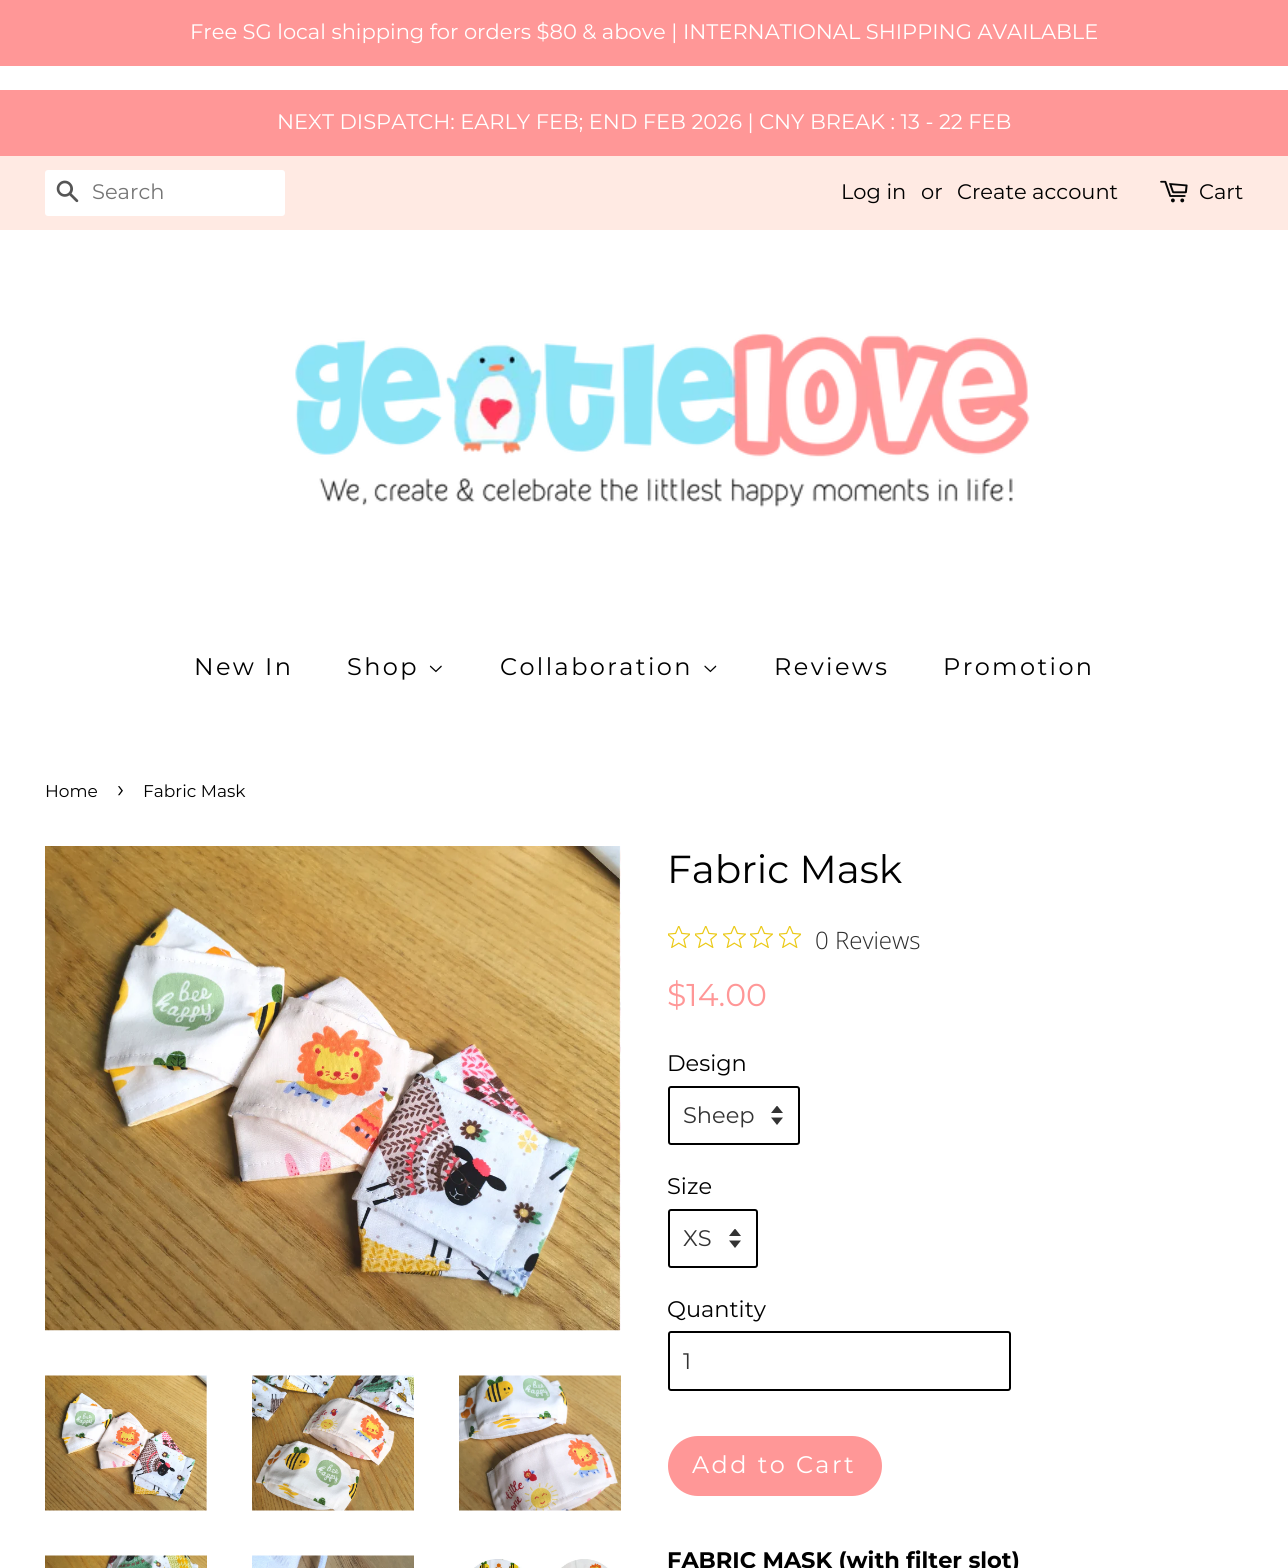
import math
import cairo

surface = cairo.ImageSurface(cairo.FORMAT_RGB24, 1288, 1568)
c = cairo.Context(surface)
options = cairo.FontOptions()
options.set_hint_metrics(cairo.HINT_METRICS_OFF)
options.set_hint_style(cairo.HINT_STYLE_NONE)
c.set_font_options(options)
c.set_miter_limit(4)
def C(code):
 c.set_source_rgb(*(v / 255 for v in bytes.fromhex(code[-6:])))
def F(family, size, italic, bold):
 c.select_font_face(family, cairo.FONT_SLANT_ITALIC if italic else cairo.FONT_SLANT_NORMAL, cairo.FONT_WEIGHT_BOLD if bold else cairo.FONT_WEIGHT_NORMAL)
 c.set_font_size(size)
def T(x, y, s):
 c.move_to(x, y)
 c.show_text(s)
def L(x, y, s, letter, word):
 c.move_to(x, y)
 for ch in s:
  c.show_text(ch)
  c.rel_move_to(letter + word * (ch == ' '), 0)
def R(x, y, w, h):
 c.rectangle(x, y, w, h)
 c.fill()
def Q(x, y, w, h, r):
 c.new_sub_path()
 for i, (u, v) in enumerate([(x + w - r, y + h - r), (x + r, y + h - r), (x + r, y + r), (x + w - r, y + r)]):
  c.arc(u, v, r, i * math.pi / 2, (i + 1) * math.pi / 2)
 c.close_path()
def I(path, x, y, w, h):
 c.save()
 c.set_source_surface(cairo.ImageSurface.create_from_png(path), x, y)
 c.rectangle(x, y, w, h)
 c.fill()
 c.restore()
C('ffffff')
c.paint()
C('ff9797')
R(0,0,1288,66)
F('Montserrat',21,0,0)
C('ffffff')
T(190,39,'Free SG local shipping for orders $80 & above | INTERNATIONAL SHIPPING AVAILABLE')
C('ff9797')
R(0,90,1288,66)
C('ffffff')
T(277,129,'NEXT DISPATCH: EARLY FEB; END FEB 2026 | CNY BREAK : 13 - 22 FEB')
C('ffeae3')
R(0,156,1288,74)
C('ffffff')
Q(45,170,240,46,3)
c.fill()
I('1.png',56,180,23,23)
C('757575')
T(92,199,'Search')
C('000000')
T(841,199,'Log in')
T(921,199,'or')
T(957,199,'Create account')
I('2.png',1160,180,28,23)
T(1199,199,'Cart')
I('3.png',295,333,735,175)
F('Montserrat',24,0,0)
L(194,675,'New In',2.4,0)
L(347,675,'Shop',2.4,0)
I('4.png',429,665,13,8)
L(500,675,'Collaboration',2.4,0)
I('5.png',704,665,13,8)
L(774,675,'Reviews',2.4,0)
L(943,675,'Promotion',2.4,0)
F('Montserrat',17,0,0)
T(45,797,'Home')
F('Montserrat',24,0,0)
T(117,797,'›')
F('Montserrat',17,0,0)
T(143,797,'Fabric Mask')
I('6.png',45,846,576,485)
I('7.png',45,1375,162,136)
I('8.png',252,1375,162,136)
I('9.png',459,1375,162,136)
I('10.png',45,1555,162,13)
I('11.png',252,1555,162,13)
I('12.png',474,1559,134,9)
F('Montserrat',39,0,0)
T(667,883,'Fabric Mask')
I('13.png',668,926,22,22)
I('13.png',695,926,22,22)
I('14.png',723,926,23,22)
I('14.png',750,926,23,22)
I('13.png',779,926,22,22)
F('Open Sans Light',24,0,0)
C('2c2c2c')
T(815,949,'0 Reviews')
F('Montserrat',31.5,0,0)
C('ff9797')
T(667,1006,'$14.00')
F('Montserrat',22.5,0,0)
C('000000')
T(667,1071,'Design')
I('15.png',771,1106,12,19)
Q(669,1087,130,57,2)
c.stroke()
C('333333')
T(683,1123,'Sheep')
C('000000')
T(667,1194,'Size')
I('15.png',729,1229,12,19)
Q(669,1210,88,57,2)
c.stroke()
C('333333')
T(683,1246,'XS')
C('000000')
T(667,1317,'Quantity')
Q(669,1332,341,58,2)
c.stroke()
C('333333')
T(683,1369,'1')
C('ff9797')
Q(668,1436,214,60,30)
c.fill()
F('Montserrat',24,0,0)
C('ffffff')
L(692,1473,'Add to Cart',2.4,0)
F('Montserrat',22.5,0,1)
C('000000')
T(667,1568,'FABRIC MASK (with filter slot)')
surface.write_to_png('o.png')
